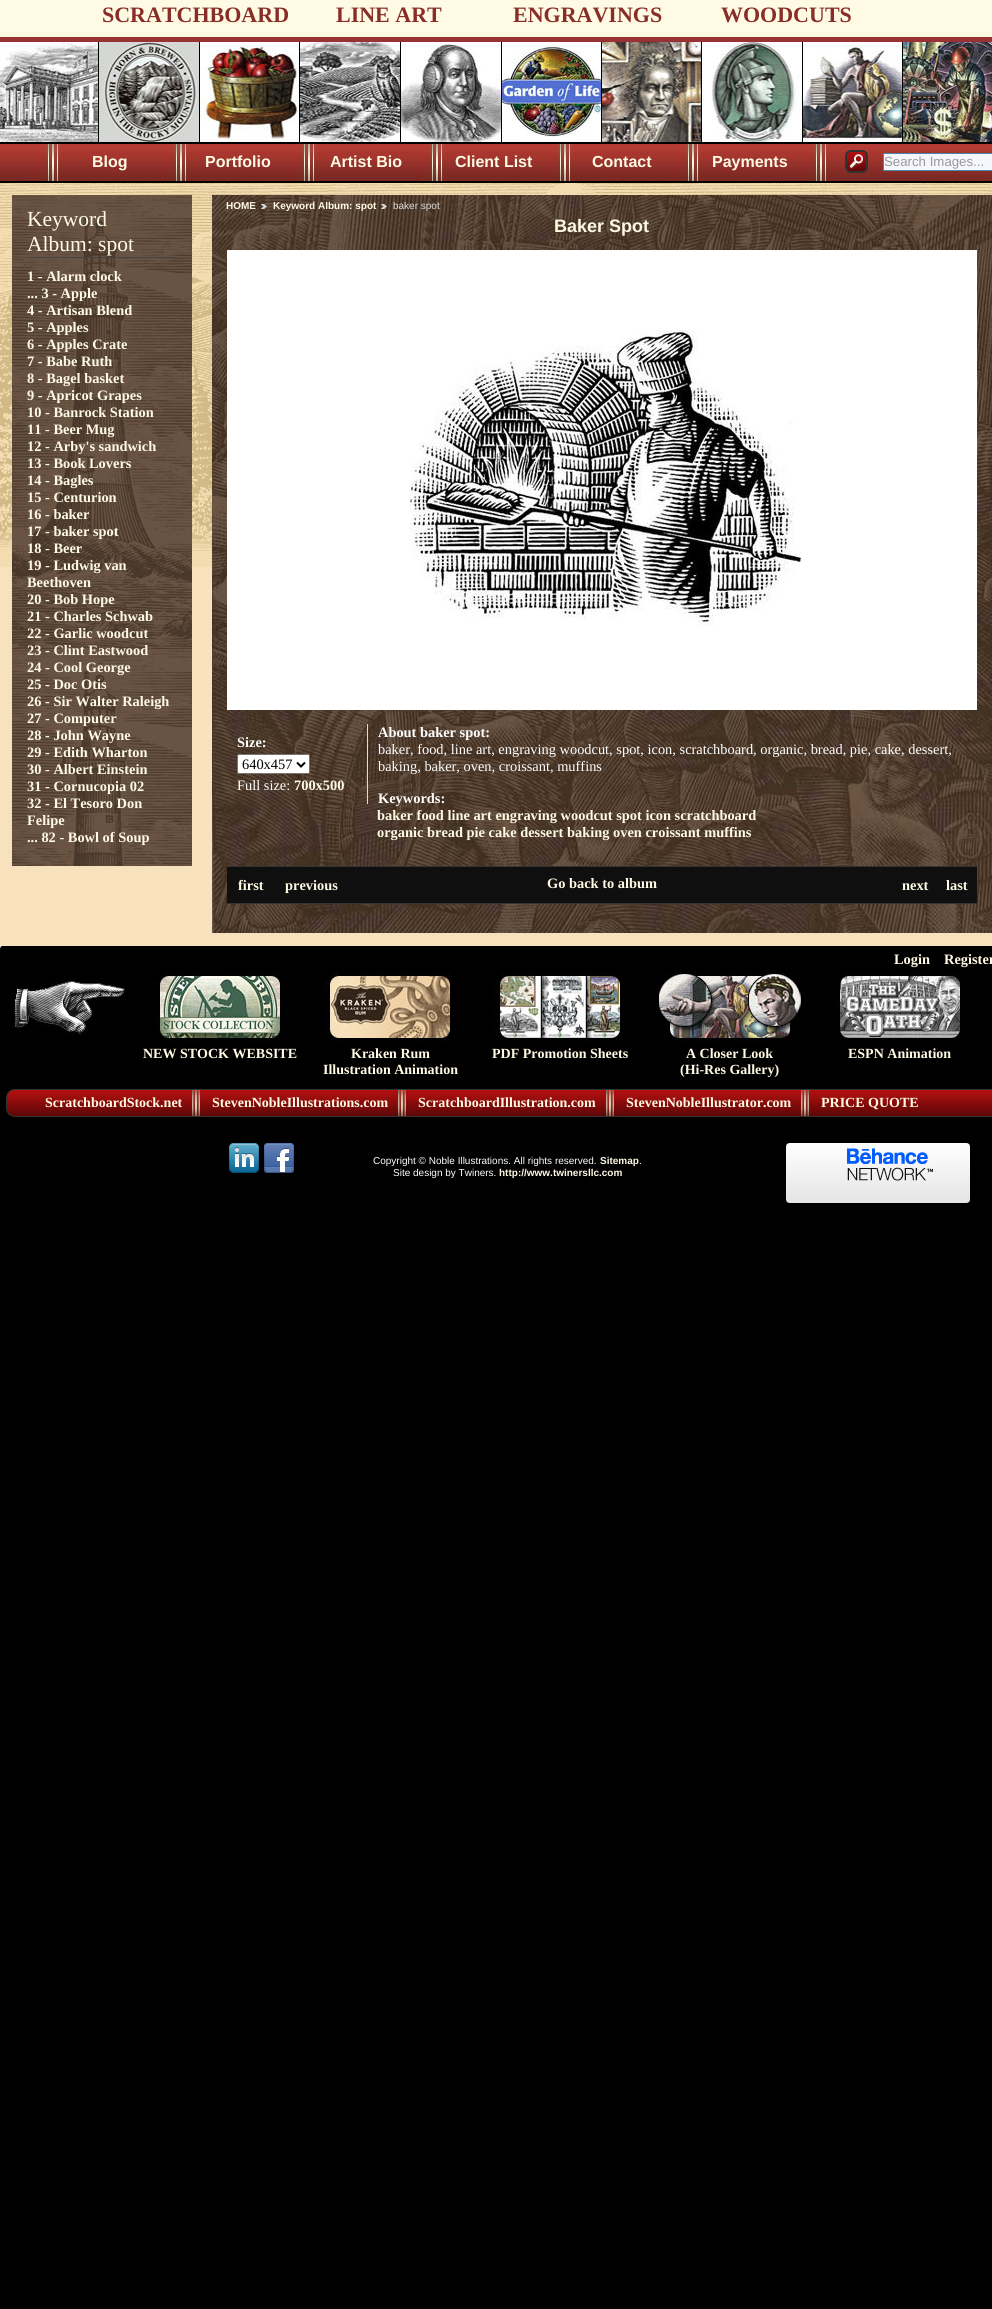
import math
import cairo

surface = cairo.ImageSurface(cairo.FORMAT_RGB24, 992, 2309)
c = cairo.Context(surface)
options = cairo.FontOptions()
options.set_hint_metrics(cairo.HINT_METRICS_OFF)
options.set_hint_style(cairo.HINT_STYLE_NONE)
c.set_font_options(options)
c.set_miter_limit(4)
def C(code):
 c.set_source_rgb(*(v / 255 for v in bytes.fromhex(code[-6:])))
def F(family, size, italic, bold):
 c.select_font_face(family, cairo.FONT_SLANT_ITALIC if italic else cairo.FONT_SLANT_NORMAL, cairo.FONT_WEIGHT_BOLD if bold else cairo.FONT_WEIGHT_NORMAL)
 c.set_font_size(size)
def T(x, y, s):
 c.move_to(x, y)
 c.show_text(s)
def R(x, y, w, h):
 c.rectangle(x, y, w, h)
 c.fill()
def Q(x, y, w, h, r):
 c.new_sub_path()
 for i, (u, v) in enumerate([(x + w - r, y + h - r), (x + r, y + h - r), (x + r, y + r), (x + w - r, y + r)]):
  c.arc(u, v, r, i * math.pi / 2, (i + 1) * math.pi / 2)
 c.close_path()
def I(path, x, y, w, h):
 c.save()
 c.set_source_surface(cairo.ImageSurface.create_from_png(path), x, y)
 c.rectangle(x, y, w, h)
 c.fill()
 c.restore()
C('000000')
c.paint()
C('ffffff')
R(0,945,2,4)
I('1.png',0,0,992,183)
F('Liberation Serif',22,0,1)
C('882d27')
T(102,22,'SCRATCHBOARD')
T(336,22,'LINE ART')
T(513,22,'ENGRAVINGS')
T(721,22,'WOODCUTS')
I('2.png',0,42,992,100)
I('3.png',46,142,14,41)
F('Liberation Sans',16,0,1)
C('fffae4')
T(92,167,'Blog')
I('3.png',174,142,14,41)
T(205,167,'Portfolio')
I('3.png',302,142,14,41)
T(330,167,'Artist Bio')
I('3.png',430,142,14,41)
T(455,167,'Client List')
I('3.png',558,142,14,41)
T(592,167,'Contact')
I('3.png',686,142,14,41)
T(712,167,'Payments')
I('3.png',814,142,14,41)
I('4.png',845,150,23,23)
C('f6f6ff')
c.rectangle(883.5,153.5,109,17)
c.fill_preserve()
C('4488aa')
c.set_line_width(1)
c.stroke()
F('Liberation Sans',13.25,0,0)
C('999999')
T(884,166,'Search Images...')
C('f8e2bd')
R(0,567,992,378)
I('5.png',0,183,992,384)
I('6.png',12,195,180,671)
C('444444')
R(27,257,150,1)
F('Liberation Serif',21.5,0,0)
C('fffae4')
T(27,226,'Keyword')
T(27,251,'Album: spot')
F('Liberation Serif',14.4,0,1)
T(27,281,'1 - Alarm clock')
T(27,298,'... 3 - Apple')
T(27,315,'4 - Artisan Blend')
T(27,332,'5 - Apples')
T(27,349,'6 - Apples Crate')
T(27,366,'7 - Babe Ruth')
T(27,383,'8 - Bagel basket')
T(27,400,'9 - Apricot Grapes')
T(27,417,'10 - Banrock Station')
T(27,434,'11 - Beer Mug')
T(27,451,'12 - Arby\'s sandwich')
T(27,468,'13 - Book Lovers')
T(27,485,'14 - Bagles')
T(27,502,'15 - Centurion')
T(27,519,'16 - baker')
T(27,536,'17 - baker spot')
T(27,553,'18 - Beer')
T(27,570,'19 - Ludwig van')
T(27,587,'Beethoven')
T(27,604,'20 - Bob Hope')
T(27,621,'21 - Charles Schwab')
T(27,638,'22 - Garlic woodcut')
T(27,655,'23 - Clint Eastwood')
T(27,672,'24 - Cool George')
T(27,689,'25 - Doc Otis')
T(27,706,'26 - Sir Walter Raleigh')
T(27,723,'27 - Computer')
T(27,740,'28 - John Wayne')
T(27,757,'29 - Edith Wharton')
T(27,774,'30 - Albert Einstein')
T(27,791,'31 - Cornucopia 02')
T(27,808,'32 - El Tesoro Don')
T(27,825,'Felipe')
T(27,842,'... 82 - Bowl of Soup')
I('7.png',212,195,780,738)
F('Liberation Sans',10,0,1)
T(226,209,'HOME')
I('8.png',261,204,6,5)
T(273,209,'Keyword Album: spot')
I('9.png',381,204,6,5)
F('Liberation Sans',10,0,0)
C('dddddd')
T(393,209,'baker spot')
F('Liberation Sans',18,0,1)
C('fffae4')
T(554,232,'Baker Spot')
C('ffffff')
R(227,250,750,460)
I('10.png',409,330,393,296)
C('dddddd')
R(367,724,1,80)
F('Liberation Serif',14.4,0,1)
C('ffffff')
T(237,747,'Size:')
Q(237.5,754.5,72,19,1.5)
c.fill_preserve()
C('767676')
c.stroke()
c.new_path()
c.move_to(297,762.5)
c.line_to(301,766.5)
c.line_to(305,762.5)
C('000000')
c.set_line_width(2)
c.stroke()
F('Liberation Serif',14.4,0,0)
T(242,769,'640x457')
C('ffffff')
T(237,790,'Full size:')
F('Liberation Serif',14.4,0,1)
C('fffae4')
T(294,790,'700x500')
C('ffffff')
T(378,737,'About baker spot:')
F('Liberation Serif',14.4,0,0)
T(378,754,'baker, food, line art, engraving woodcut, spot, icon, scratchboard, organic, bread, pie, cake, dessert,')
T(378,771,'baking, baker, oven, croissant, muffins')
F('Liberation Serif',14.4,0,1)
T(378,803,'Keywords:')
C('fffae4')
T(377,820,'baker food line art engraving woodcut spot icon scratchboard')
T(377,837,'organic bread pie cake dessert baking oven croissant muffins')
C('0f0f0f')
R(227,867,750,36)
C('333333')
R(227,866,750,1)
R(227,903,750,1)
C('fffae4')
T(547,888,'Go back to album')
T(238,890,'first')
T(285,890,'previous')
T(902,890,'next')
T(946,890,'last')
C('000000')
c.new_path()
c.move_to(4,945)
c.line_to(992,945)
c.curve_to(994,945,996,947,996,949)
c.line_to(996,1206)
c.line_to(0,1206)
c.line_to(0,949)
c.curve_to(0,947,2,945,4,945)
c.close_path()
c.fill()
C('f8e2bd')
R(2,945,990,1)
C('fffae4')
T(894,964,'Login')
T(944,964,'Register')
I('11.png',13,980,112,56)
I('12.png',153,972,128,70)
F('Liberation Serif',14,0,1)
T(143,1058,'NEW STOCK WEBSITE')
I('13.png',323,972,128,70)
T(351,1058,'Kraken Rum')
T(323,1074,'Illustration Animation')
I('14.png',493,972,128,70)
T(492,1058,'PDF Promotion Sheets')
I('15.png',655,972,149,70)
T(686,1058,'A Closer Look')
T(680,1074,'(Hi-Res Gallery)')
I('16.png',833,972,128,70)
T(848,1058,'ESPN Animation')
I('17.png',6,1089,986,28)
T(45,1107,'ScratchboardStock.net')
I('18.png',192,1088,8,30)
T(212,1107,'StevenNobleIllustrations.com')
I('18.png',398,1088,8,30)
T(418,1107,'ScratchboardIllustration.com')
I('18.png',606,1088,8,30)
T(626,1107,'StevenNobleIllustrator.com')
I('18.png',801,1088,8,30)
T(821,1107,'PRICE QUOTE')
I('19.png',229,1143,30,30)
I('20.png',264,1143,30,30)
F('Liberation Sans',10,0,0)
C('ffffff')
T(373,1164,'Copyright © Noble Illustrations. All rights reserved.')
F('Liberation Sans',10,0,1)
C('fffae4')
T(600,1164,'Sitemap')
F('Liberation Sans',10,0,0)
C('ffffff')
T(639,1164,'.')
T(393,1176,'Site design by Twiners.')
F('Liberation Sans',10,0,1)
C('fffae4')
T(499,1176,'http://www.twinersllc.com')
I('21.png',786,1143,184,60)
surface.write_to_png('o.png')
